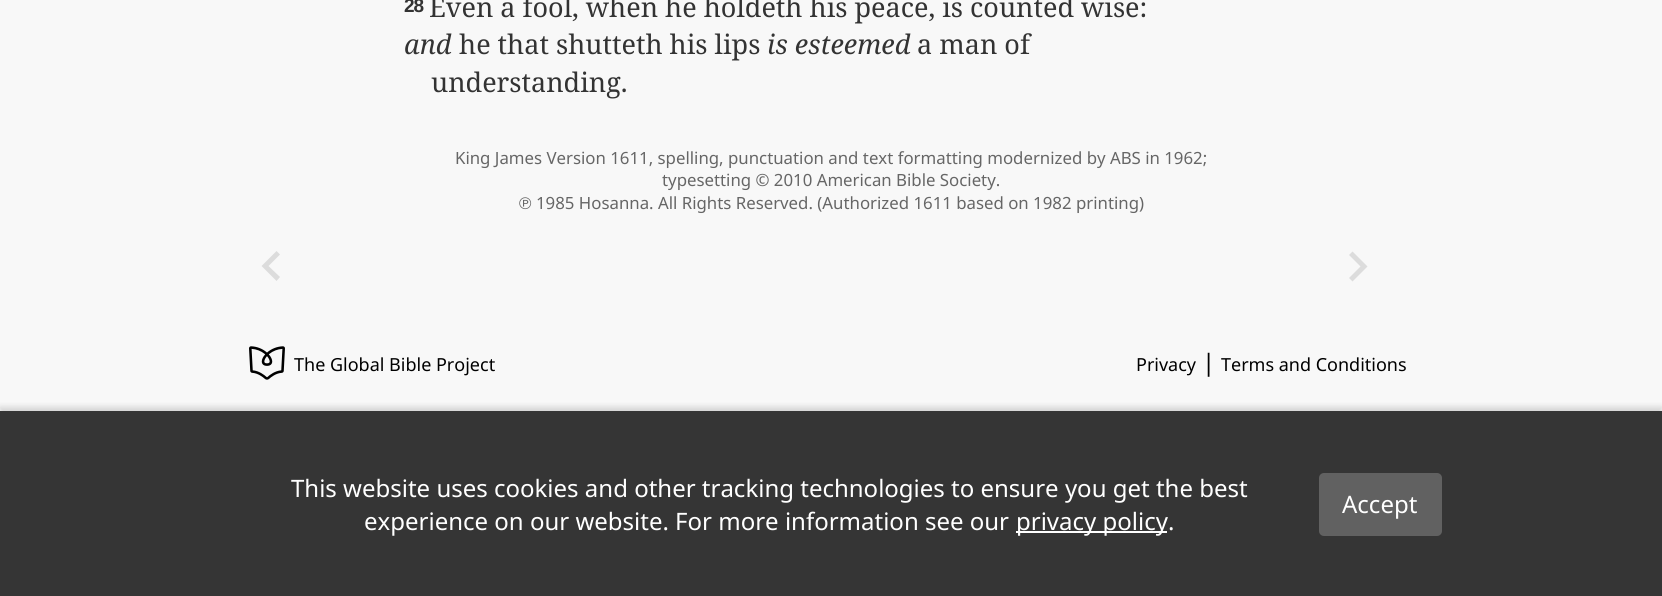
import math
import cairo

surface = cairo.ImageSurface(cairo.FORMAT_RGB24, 1662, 596)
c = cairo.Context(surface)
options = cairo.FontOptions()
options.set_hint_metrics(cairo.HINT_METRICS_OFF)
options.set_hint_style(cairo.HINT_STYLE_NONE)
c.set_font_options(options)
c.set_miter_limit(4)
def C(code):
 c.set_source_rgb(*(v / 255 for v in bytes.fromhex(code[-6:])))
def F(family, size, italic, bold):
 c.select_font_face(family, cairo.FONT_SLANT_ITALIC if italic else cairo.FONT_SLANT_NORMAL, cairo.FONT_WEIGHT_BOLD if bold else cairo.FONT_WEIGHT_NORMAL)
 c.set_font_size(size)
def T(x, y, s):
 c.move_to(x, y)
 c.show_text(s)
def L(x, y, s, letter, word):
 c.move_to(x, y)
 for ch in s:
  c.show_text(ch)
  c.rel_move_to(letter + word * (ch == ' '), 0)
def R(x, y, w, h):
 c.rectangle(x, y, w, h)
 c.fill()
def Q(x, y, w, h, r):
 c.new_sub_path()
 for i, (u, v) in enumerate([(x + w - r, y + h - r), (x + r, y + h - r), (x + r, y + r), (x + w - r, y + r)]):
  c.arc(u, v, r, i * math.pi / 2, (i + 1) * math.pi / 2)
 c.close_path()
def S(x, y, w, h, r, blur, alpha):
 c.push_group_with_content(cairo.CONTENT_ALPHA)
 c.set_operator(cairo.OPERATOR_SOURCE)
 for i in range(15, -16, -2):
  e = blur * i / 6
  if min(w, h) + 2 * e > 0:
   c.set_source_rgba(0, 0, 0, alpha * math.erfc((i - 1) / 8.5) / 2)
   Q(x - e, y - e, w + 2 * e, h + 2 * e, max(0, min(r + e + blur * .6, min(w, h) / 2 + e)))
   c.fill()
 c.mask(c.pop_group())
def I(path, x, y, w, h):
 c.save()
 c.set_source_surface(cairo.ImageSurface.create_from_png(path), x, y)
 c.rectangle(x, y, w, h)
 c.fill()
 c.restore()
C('f8f8f8')
c.paint()
F('Liberation Sans',19,0,1)
C('333333')
L(404,12,'28',-1,0)
F('Noto Serif',27,0,0)
T(429,17,'Even a fool, when he holdeth his peace, is counted wise:')
F('Noto Serif',27,1,0)
T(404,54,'and')
F('Noto Serif',27,0,0)
T(459,54,'he that shutteth his lips')
F('Noto Serif',27,1,0)
T(767,54,'is esteemed')
F('Noto Serif',27,0,0)
T(917,54,'a man of')
T(431,92,'understanding.')
F('Noto Sans',16.8,0,0)
C('666666')
T(455,164,'King James Version 1611, spelling, punctuation and text formatting modernized by ABS in 1962;')
T(662,186,'typesetting © 2010 American Bible Society.')
F('Liberation Sans',16.8,0,0)
T(519,209,'℗')
F('Noto Sans',16.8,0,0)
T(536,209,'1985 Hosanna. All Rights Reserved. (Authorized 1611 based on 1982 printing)')
C('dcdcdc')
c.new_path()
c.move_to(280,277)
c.line_to(268.5,266)
c.line_to(280,254.5)
c.line_to(276.5,251)
c.line_to(261.5,266)
c.line_to(276.5,281)
c.close_path()
c.fill()
c.new_path()
c.move_to(1349,278)
c.line_to(1360.5,266.5)
c.line_to(1349,255)
c.line_to(1352.5,251.5)
c.line_to(1367.5,266.5)
c.line_to(1352.5,281.5)
c.close_path()
c.fill()
I('1.png',249,346,36,34)
F('Noto Sans',18,0,0)
C('000000')
T(294,371,'The Global Bible Project')
T(1136,371,'Privacy')
F('Noto Sans',24,0,0)
T(1202,371,'|')
F('Noto Sans',18,0,0)
T(1221,371,'Terms and Conditions')
C('000000')
S(0,407,1662,186,0,3,.15)
C('353535')
R(0,411,1662,185)
F('Noto Sans',24,0,0)
C('ffffff')
T(291,497,'This website uses cookies and other tracking technologies to ensure you get the best')
T(364,530,'experience on our website. For more information see our')
R(1016,531,151,2)
T(1016,530,'privacy policy.')
C('616161')
Q(1319,473,123,63,5)
c.fill()
C('ffffff')
T(1342,513,'Accept')
surface.write_to_png('o.png')
